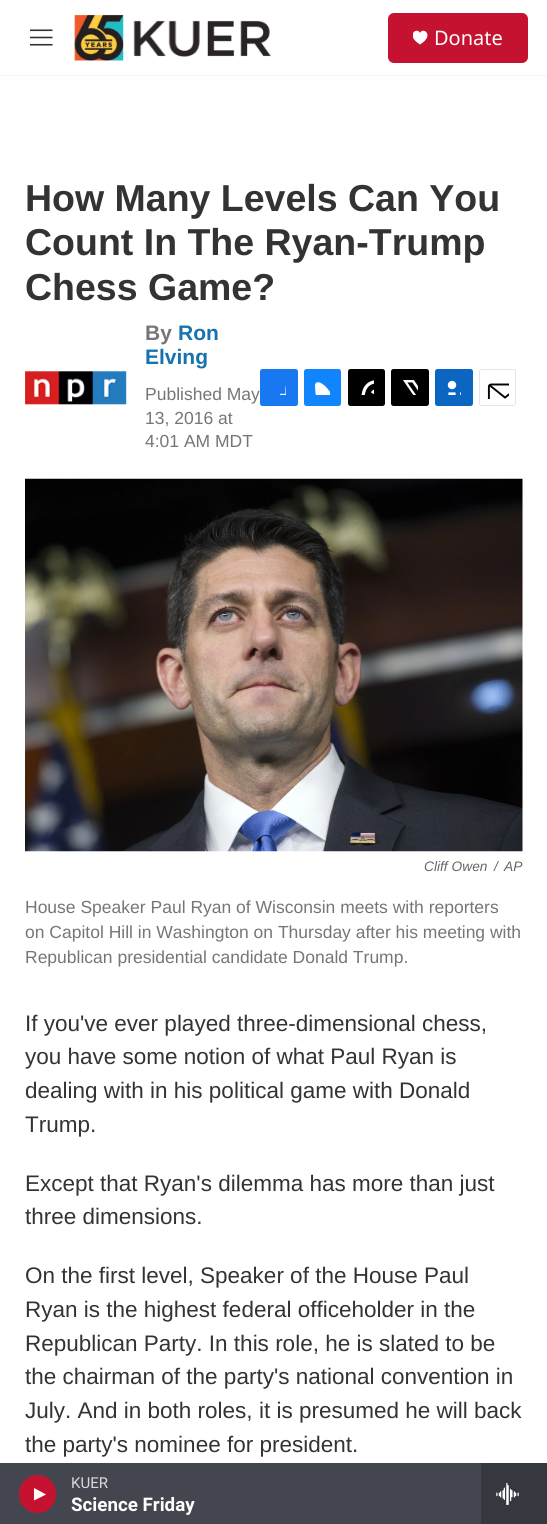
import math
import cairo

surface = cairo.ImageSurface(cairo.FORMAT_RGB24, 547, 1524)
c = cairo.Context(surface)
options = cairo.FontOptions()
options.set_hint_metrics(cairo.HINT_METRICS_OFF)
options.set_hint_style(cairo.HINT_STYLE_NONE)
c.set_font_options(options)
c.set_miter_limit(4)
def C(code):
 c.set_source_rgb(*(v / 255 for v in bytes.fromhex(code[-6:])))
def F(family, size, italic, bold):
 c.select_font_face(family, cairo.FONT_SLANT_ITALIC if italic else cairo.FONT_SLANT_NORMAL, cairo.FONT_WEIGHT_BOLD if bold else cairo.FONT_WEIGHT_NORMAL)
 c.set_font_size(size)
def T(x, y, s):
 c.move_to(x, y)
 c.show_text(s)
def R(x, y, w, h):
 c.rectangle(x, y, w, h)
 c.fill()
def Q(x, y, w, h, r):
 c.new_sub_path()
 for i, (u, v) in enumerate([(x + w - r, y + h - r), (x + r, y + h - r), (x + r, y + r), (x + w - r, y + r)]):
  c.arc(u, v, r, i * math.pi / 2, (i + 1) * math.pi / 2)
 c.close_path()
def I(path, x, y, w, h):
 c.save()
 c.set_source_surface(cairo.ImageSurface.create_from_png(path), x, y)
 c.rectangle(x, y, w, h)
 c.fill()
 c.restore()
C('ffffff')
c.paint()
C('f5f5f5')
R(0,75,547,1)
I('1.png',30,29,23,17)
I('2.png',74,14,197,47)
C('c41230')
Q(388,13,140,50,6)
c.fill()
c.save()
c.rectangle(413,30,15,15)
c.clip()
C('ffffff')
c.new_path()
c.move_to(420,33)
c.curve_to(417.5,26.5,404.5,35,420,44.5)
c.curve_to(435.5,35,422.5,26.5,420,33)
c.close_path()
c.fill()
c.restore()
F('Noto Sans',20,0,0)
C('ffffff')
T(434,45,'Donate')
C('44464f')
R(0,1463,481,61)
C('c41230')
Q(19,1475,37,38,18.5)
c.fill()
C('ffffff')
c.new_path()
c.move_to(34,1488)
c.line_to(46,1494.5)
c.line_to(34,1500.5)
c.close_path()
c.fill()
F('Roboto',15,0,0)
C('dadadc')
T(71,1488,'KUER')
F('Roboto',18.75,0,1)
C('ffffff')
T(71,1511,'Science Friday')
C('36383f')
R(481,1463,66,61)
I('3.png',496,1483,23,22)
F('Liberation Sans',37.5,0,1)
C('333333')
T(25,211,'How Many Levels Can You')
T(25,255,'Count In The Ryan-Trump')
T(25,300,'Chess Game?')
I('4.png',25,371,102,34)
F('Liberation Sans',21,0,1)
C('767676')
T(145,340,'By')
C('1772b0')
T(178,340,'Ron')
T(145,364,'Elving')
F('Liberation Sans',17.5,0,0)
C('767676')
T(145,400,'Published May')
T(145,424,'13, 2016 at')
T(145,447,'4:01 AM MDT')
C('1778f2')
Q(260,369,38,37,2.5)
c.fill()
I('5.png',280,385,6,10)
C('1185fe')
Q(304,369,37,37,2.5)
c.fill()
I('6.png',315,382,15,13)
C('000000')
Q(348,369,37,37,2.5)
c.fill()
I('7.png',361,380,13,15)
Q(391,369,38,37,2.5)
c.fill()
I('8.png',403,380,15,15)
C('0a66c1')
Q(435,369,38,37,2.5)
c.fill()
I('9.png',447,380,14,15)
Q(479.5,369.5,36,36,2)
C('e6e6e6')
c.set_line_width(1)
c.stroke()
I('10.png',487,383,22,16)
I('11.png',25,478,498,374)
F('Liberation Sans',13.75,1,0)
C('666666')
T(424,871,'Cliff Owen')
T(494,871,'/')
T(504,871,'AP')
F('Liberation Sans',17.5,0,0)
C('767676')
T(25,913,'House Speaker Paul Ryan of Wisconsin meets with reporters')
T(25,938,'on Capitol Hill in Washington on Thursday after his meeting with')
T(25,963,'Republican presidential candidate Donald Trump.')
F('Liberation Sans',22.5,0,0)
C('333333')
T(25,1031,'If you\'ve ever played three-dimensional chess,')
T(25,1064,'you have some notion of what Paul Ryan is')
T(25,1098,'dealing with in his political game with Donald')
T(25,1132,'Trump.')
T(25,1191,'Except that Ryan\'s dilemma has more than just')
T(25,1224,'three dimensions.')
T(25,1283,'On the first level, Speaker of the House Paul')
T(25,1317,'Ryan is the highest federal officeholder in the')
T(25,1351,'Republican Party. In this role, he is slated to be')
T(25,1384,'the chairman of the party\'s national convention in')
T(25,1418,'July. And in both roles, it is presumed he will back')
T(25,1452,'the party\'s nominee for president.')
surface.write_to_png('o.png')
